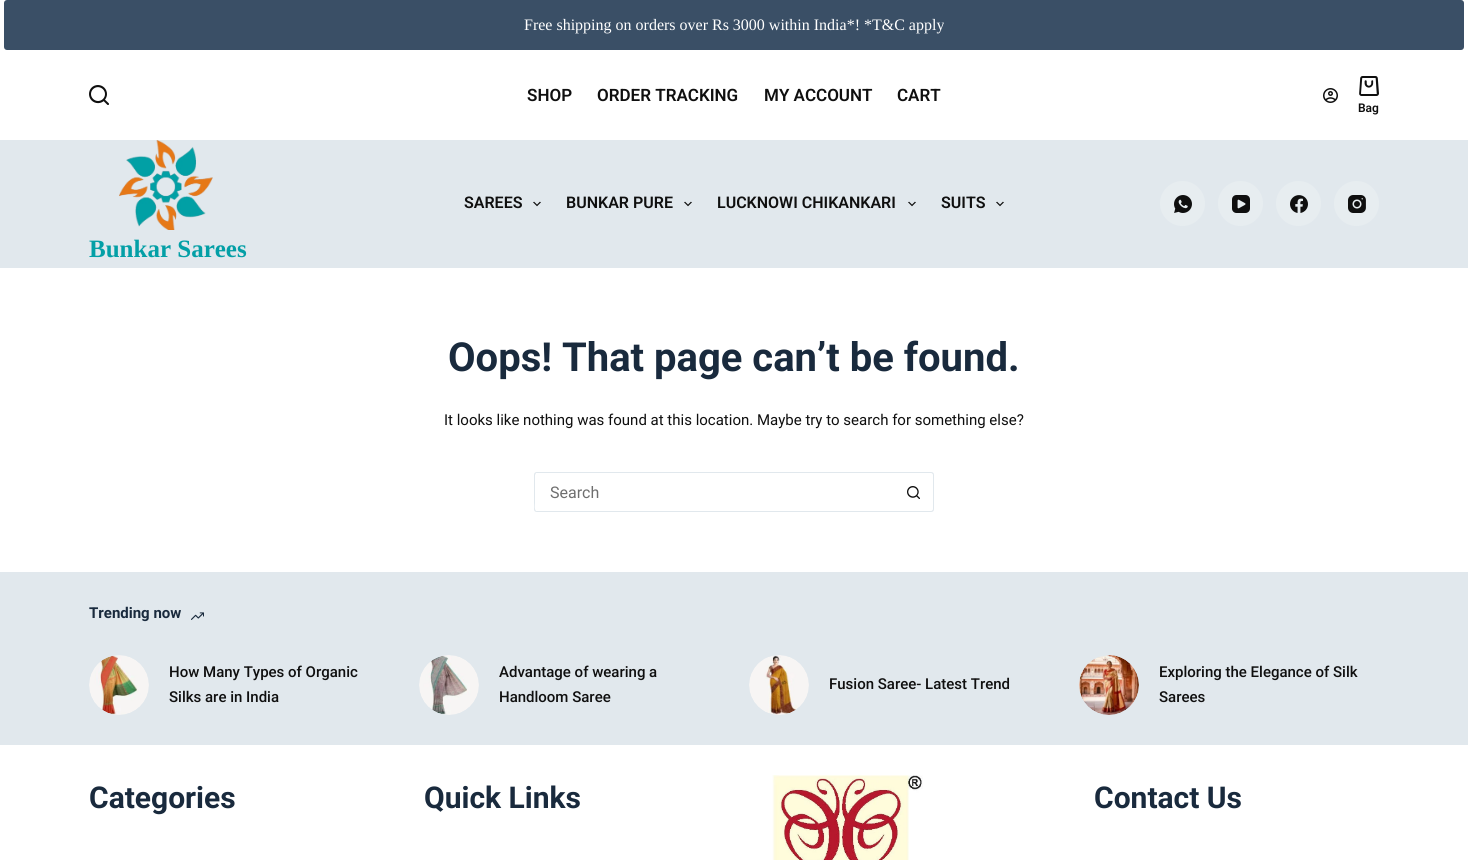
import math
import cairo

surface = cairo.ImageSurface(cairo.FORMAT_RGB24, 1468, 860)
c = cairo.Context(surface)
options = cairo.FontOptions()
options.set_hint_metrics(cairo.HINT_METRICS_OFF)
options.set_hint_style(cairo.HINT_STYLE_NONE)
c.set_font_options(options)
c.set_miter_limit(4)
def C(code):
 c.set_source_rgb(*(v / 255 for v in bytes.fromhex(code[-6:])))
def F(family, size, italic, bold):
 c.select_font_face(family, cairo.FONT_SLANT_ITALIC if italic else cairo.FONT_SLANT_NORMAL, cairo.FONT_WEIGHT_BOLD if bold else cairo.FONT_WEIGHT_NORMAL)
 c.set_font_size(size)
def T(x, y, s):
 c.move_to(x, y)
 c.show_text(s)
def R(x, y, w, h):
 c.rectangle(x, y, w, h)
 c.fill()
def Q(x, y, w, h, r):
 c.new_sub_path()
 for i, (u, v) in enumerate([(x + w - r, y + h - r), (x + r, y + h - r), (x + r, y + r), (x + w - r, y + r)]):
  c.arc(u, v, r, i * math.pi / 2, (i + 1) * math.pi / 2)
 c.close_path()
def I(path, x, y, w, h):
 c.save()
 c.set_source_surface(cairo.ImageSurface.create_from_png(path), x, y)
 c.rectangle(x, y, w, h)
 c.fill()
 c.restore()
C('ffffff')
c.paint()
C('3a4f66')
Q(4,0,1460,50,3)
c.fill()
F('Liberation Serif',16,0,0)
C('ffffff')
T(524,30,'Free shipping on orders over Rs 3000 within India*! *T&C apply')
I('1.png',89,85,20,20)
F('Roboto SemiBold',17,0,0)
C('0f0f0f')
T(527,101,'SHOP')
T(597,101,'ORDER TRACKING')
T(764,101,'MY ACCOUNT')
T(897,101,'CART')
I('2.png',1323,88,15,15)
I('3.png',1359,76,20,20)
F('Roboto SemiBold',12,0,0)
T(1358,112,'Bag')
C('e1e8ed')
R(0,140,1468,128)
F('Roboto SemiBold',16,0,0)
C('0f0f0f')
T(464,208,'SAREES')
I('4.png',533,201,8,6)
T(566,208,'BUNKAR PURE')
I('4.png',684,201,8,6)
T(717,208,'LUCKNOWI CHIKANKARI')
I('4.png',908,201,8,6)
T(941,208,'SUITS')
I('4.png',996,201,8,6)
C('e7edf0')
c.arc(1182.5,203.5,22.5,0,2 * math.pi)
c.fill()
I('5.png',1174,195,18,18)
c.arc(1240.5,203.5,22.5,0,2 * math.pi)
c.fill()
I('6.png',1232,195,18,18)
c.arc(1298.5,203.5,22.5,0,2 * math.pi)
c.fill()
I('7.png',1290,195,18,18)
c.arc(1356.5,203.5,22.5,0,2 * math.pi)
c.fill()
I('8.png',1348,195,18,18)
I('9.png',119,140,94,90)
F('Liberation Serif',25,0,1)
C('039fa6')
T(89,257,'Bunkar Sarees')
F('Roboto',40,0,1)
C('192a3d')
T(448,371,'Oops! That page can’t be found.')
F('Roboto',15,0,0)
C('0f0f0f')
T(444,425,'It looks like nothing was found at this location. Maybe try to search for something else?')
C('e1e8ed')
c.set_fill_rule(cairo.FILL_RULE_EVEN_ODD)
c.new_path()
c.move_to(537,472)
c.line_to(894,472)
c.line_to(894,512)
c.line_to(537,512)
c.curve_to(535,512,534,511,534,509)
c.line_to(534,475)
c.curve_to(534,473,535,472,537,472)
c.close_path()
c.move_to(537,473)
c.line_to(894,473)
c.line_to(894,511)
c.line_to(536,511)
c.curve_to(534,509,535,504,535,503)
c.line_to(535,475)
c.line_to(536,473)
c.close_path()
c.fill()
F('Roboto',16,0,0)
C('6f6f6f')
T(550,498,'Search')
C('e1e8ed')
c.new_path()
c.move_to(894,472)
c.line_to(931,472)
c.curve_to(933,472,934,473,934,475)
c.line_to(934,509)
c.curve_to(934,511,933,512,931,512)
c.line_to(894,512)
c.close_path()
c.move_to(894,473)
c.line_to(931,473)
c.curve_to(932,473,933,474,933,475)
c.line_to(933,509)
c.curve_to(933,510,932,511,931,511)
c.line_to(894,511)
c.close_path()
c.fill()
I('10.png',907,486,13,13)
R(0,572,1468,173)
F('Roboto',15,0,1)
C('192a3d')
T(89,618,'Trending now')
I('11.png',191,612,13,8)
I('12.png',89,655,60,60)
F('Roboto Medium',15,0,0)
C('0f0f0f')
T(169,677,'How Many Types of Organic')
T(169,702,'Silks are in India')
I('13.png',419,655,60,60)
T(499,677,'Advantage of wearing a')
T(499,702,'Handloom Saree')
I('14.png',749,655,60,60)
T(829,689,'Fusion Saree- Latest Trend')
I('15.png',1079,655,60,60)
T(1159,677,'Exploring the Elegance of Silk')
T(1159,702,'Sarees')
F('Roboto',30,0,1)
C('192a3d')
T(89,808,'Categories')
T(424,808,'Quick Links')
I('16.png',772,775,151,85)
T(1094,808,'Contact Us')
surface.write_to_png('o.png')
